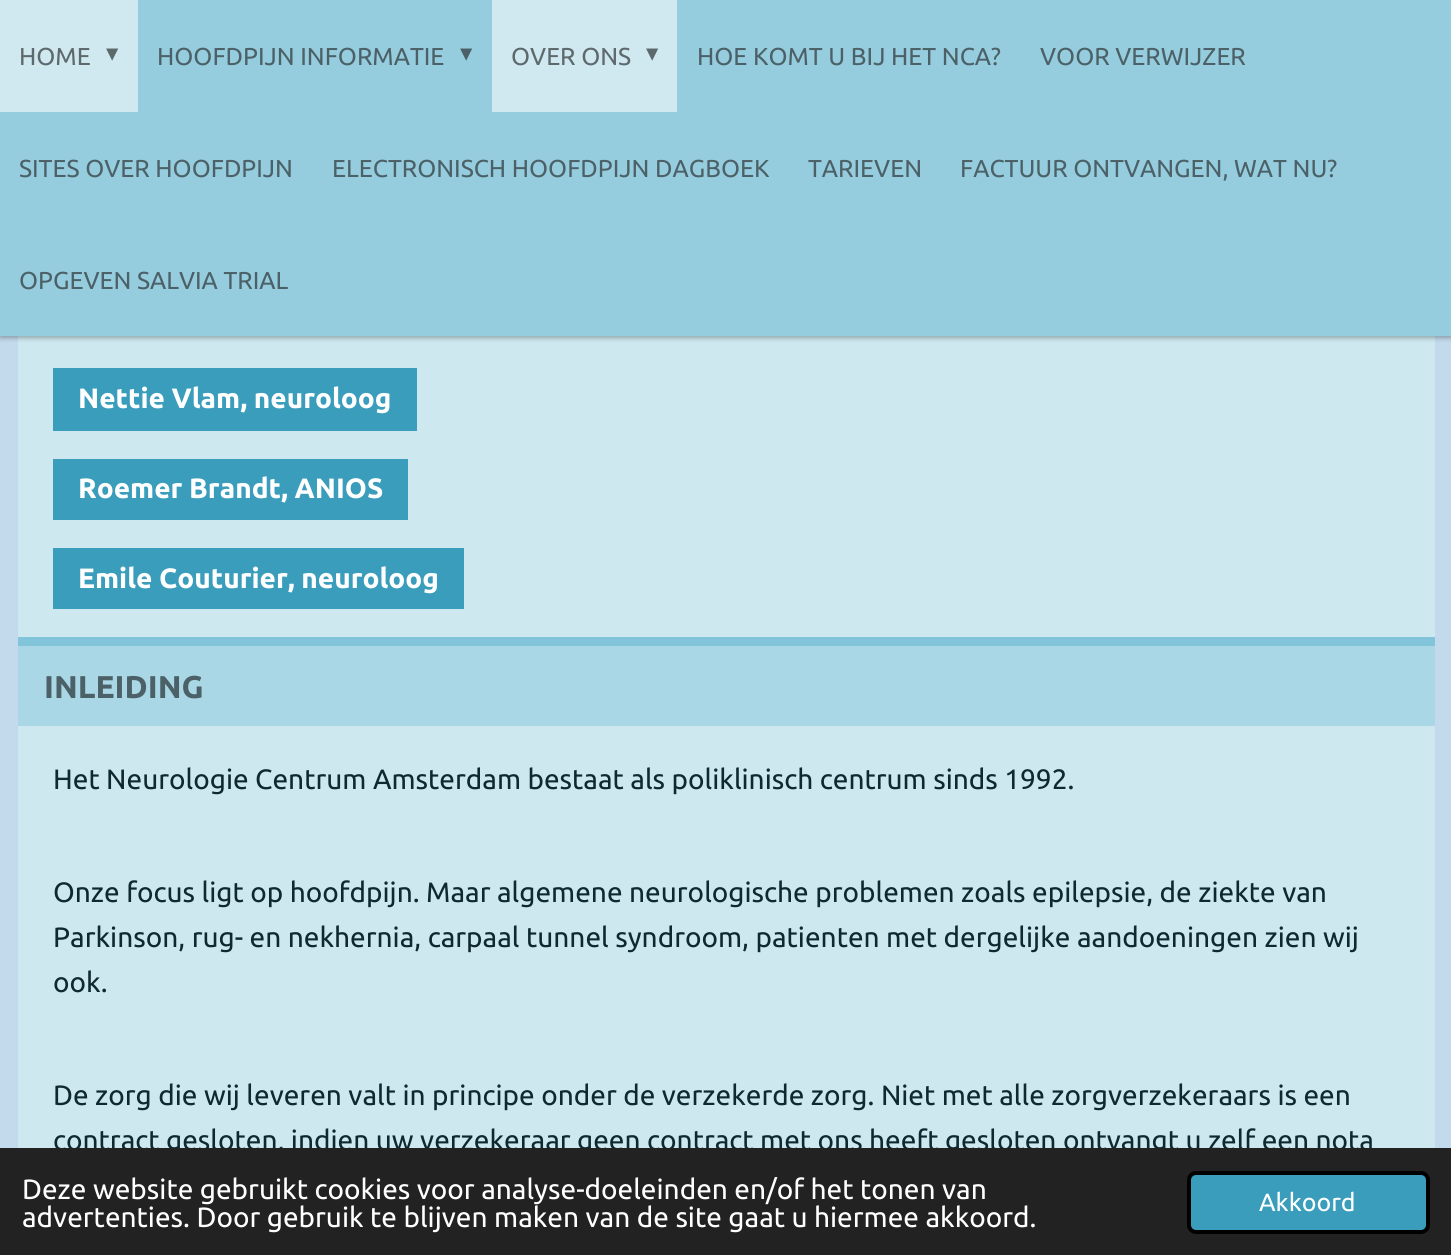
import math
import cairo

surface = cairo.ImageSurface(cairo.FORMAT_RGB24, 1451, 1255)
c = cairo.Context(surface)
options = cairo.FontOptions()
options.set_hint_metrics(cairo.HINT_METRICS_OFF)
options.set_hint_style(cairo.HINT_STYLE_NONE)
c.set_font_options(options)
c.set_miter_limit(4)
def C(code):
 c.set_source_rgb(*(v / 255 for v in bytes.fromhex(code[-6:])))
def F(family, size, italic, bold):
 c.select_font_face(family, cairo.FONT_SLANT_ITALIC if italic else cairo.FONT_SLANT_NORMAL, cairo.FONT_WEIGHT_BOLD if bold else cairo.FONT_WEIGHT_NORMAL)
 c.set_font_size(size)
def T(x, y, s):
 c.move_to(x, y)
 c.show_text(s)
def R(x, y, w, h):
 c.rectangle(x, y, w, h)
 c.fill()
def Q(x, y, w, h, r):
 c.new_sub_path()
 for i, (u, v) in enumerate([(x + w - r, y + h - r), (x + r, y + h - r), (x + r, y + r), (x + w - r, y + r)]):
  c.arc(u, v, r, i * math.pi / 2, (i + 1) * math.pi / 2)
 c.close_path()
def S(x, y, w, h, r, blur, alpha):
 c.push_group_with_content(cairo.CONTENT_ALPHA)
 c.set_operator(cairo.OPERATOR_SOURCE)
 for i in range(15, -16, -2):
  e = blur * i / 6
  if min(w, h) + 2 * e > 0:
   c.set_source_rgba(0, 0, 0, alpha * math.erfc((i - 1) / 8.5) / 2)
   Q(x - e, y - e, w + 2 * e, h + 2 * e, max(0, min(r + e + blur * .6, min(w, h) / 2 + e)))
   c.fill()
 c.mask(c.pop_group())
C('c3daec')
c.paint()
C('cee8f0')
R(18,336,1417,812)
C('000000')
S(0,-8,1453,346,0,2.5,.3)
C('95cddf')
R(0,0,1451,336)
C('d0e9f1')
R(0,0,138,112)
F('Ubuntu',24.5,0,0)
C('5e696c')
T(19,65,'HOME')
F('DejaVu Sans',24.5,0,0)
T(106,61,'▾')
F('Ubuntu',24.5,0,0)
C('4c6167')
T(157,65,'HOOFDPIJN INFORMATIE')
F('DejaVu Sans',24.5,0,0)
T(460,61,'▾')
C('d0e9f1')
R(492,0,185,112)
F('Ubuntu',24.5,0,0)
C('5e696c')
T(511,65,'OVER ONS')
F('DejaVu Sans',24.5,0,0)
T(646,61,'▾')
F('Ubuntu',24.5,0,0)
C('4c6167')
T(697,65,'HOE KOMT U BIJ HET NCA?')
T(1040,65,'VOOR VERWIJZER')
T(19,177,'SITES OVER HOOFDPIJN')
T(332,177,'ELECTRONISCH HOOFDPIJN DAGBOEK')
T(808,177,'TARIEVEN')
T(960,177,'FACTUUR ONTVANGEN, WAT NU?')
T(19,289,'OPGEVEN SALVIA TRIAL')
C('399dbb')
R(53,368,364,63)
F('Ubuntu',28,0,1)
C('ffffff')
T(78,408,'Nettie Vlam, neuroloog')
C('399dbb')
R(53,459,355,61)
C('ffffff')
T(78,498,'Roemer Brandt, ANIOS')
C('399dbb')
R(53,548,411,61)
C('ffffff')
T(78,588,'Emile Couturier, neuroloog')
C('a9d7e5')
R(18,646,1417,80)
C('82c4d9')
R(18,637,1417,9)
F('Ubuntu',31.5,0,1)
C('4c6167')
T(44,698,'INLEIDING')
F('Ubuntu',28,0,0)
C('0f2931')
T(53,789,'Het Neurologie Centrum Amsterdam bestaat als poliklinisch centrum sinds 1992.')
T(53,902,'Onze focus ligt op hoofdpijn. Maar algemene neurologische problemen zoals epilepsie, de ziekte van')
T(53,947,'Parkinson, rug- en nekhernia, carpaal tunnel syndroom, patienten met dergelijke aandoeningen zien wij')
T(53,992,'ook.')
T(53,1105,'De zorg die wij leveren valt in principe onder de verzekerde zorg. Niet met alle zorgverzekeraars is een')
T(53,1150,'contract gesloten, indien uw verzekeraar geen contract met ons heeft gesloten ontvangt u zelf een nota')
C('222222')
R(0,1148,1451,107)
C('ffffff')
T(22,1199,'Deze website gebruikt cookies voor analyse-doeleinden en/of het tonen van')
T(22,1227,'advertenties. Door gebruik te blijven maken van de site gaat u hiermee akkoord.')
C('399dbb')
Q(1189,1173,239,59,7)
c.fill_preserve()
C('000000')
c.set_line_width(4)
c.stroke()
F('Ubuntu',25,0,0)
C('ffffff')
T(1259,1211,'Akkoord')
surface.write_to_png('o.png')
